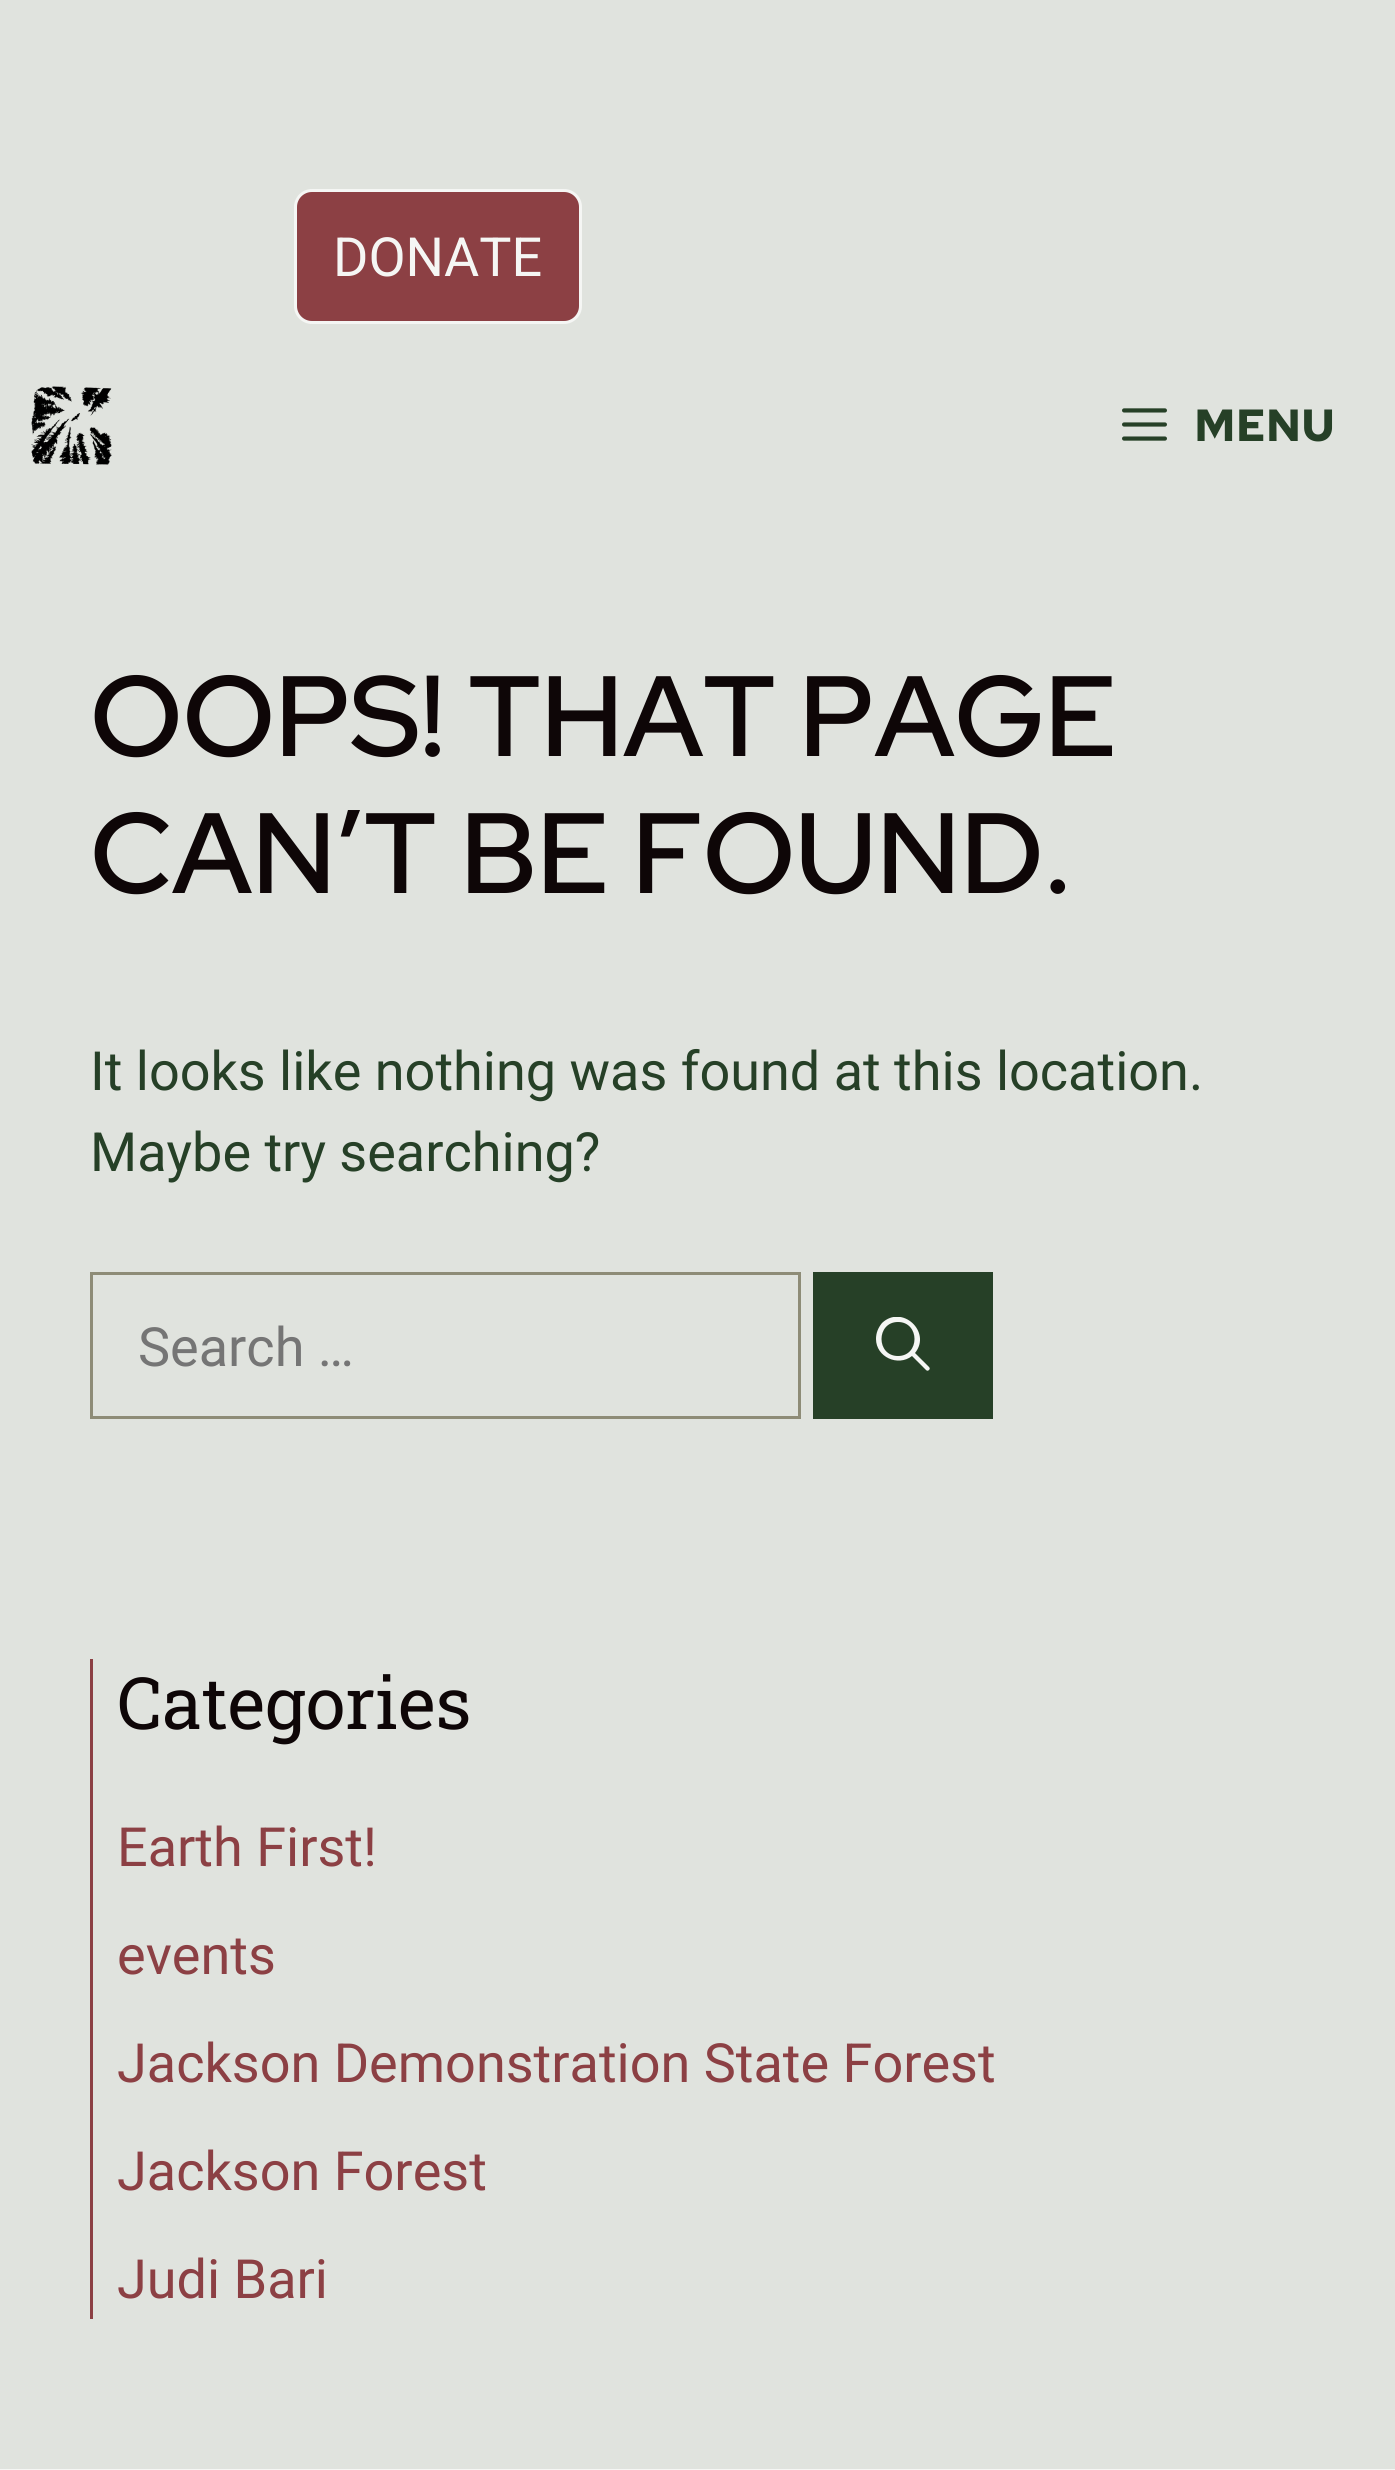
import math
import cairo

surface = cairo.ImageSurface(cairo.FORMAT_RGB24, 1395, 2470)
c = cairo.Context(surface)
options = cairo.FontOptions()
options.set_hint_metrics(cairo.HINT_METRICS_OFF)
options.set_hint_style(cairo.HINT_STYLE_NONE)
c.set_font_options(options)
c.set_miter_limit(4)
def C(code):
 c.set_source_rgb(*(v / 255 for v in bytes.fromhex(code[-6:])))
def F(family, size, italic, bold):
 c.select_font_face(family, cairo.FONT_SLANT_ITALIC if italic else cairo.FONT_SLANT_NORMAL, cairo.FONT_WEIGHT_BOLD if bold else cairo.FONT_WEIGHT_NORMAL)
 c.set_font_size(size)
def T(x, y, s):
 c.move_to(x, y)
 c.show_text(s)
def R(x, y, w, h):
 c.rectangle(x, y, w, h)
 c.fill()
def Q(x, y, w, h, r):
 c.new_sub_path()
 for i, (u, v) in enumerate([(x + w - r, y + h - r), (x + r, y + h - r), (x + r, y + r), (x + w - r, y + r)]):
  c.arc(u, v, r, i * math.pi / 2, (i + 1) * math.pi / 2)
 c.close_path()
def I(path, x, y, w, h):
 c.save()
 c.set_source_surface(cairo.ImageSurface.create_from_png(path), x, y)
 c.rectangle(x, y, w, h)
 c.fill()
 c.restore()
C('e0e3de')
c.paint()
C('8c4044')
Q(295.5,190.5,285,132,16.5)
c.fill_preserve()
C('f5f6f4')
c.set_line_width(3)
c.stroke()
F('Roboto',54,0,0)
T(333,276,'DONATE')
I('1.png',31,386,81,79)
I('2.png',1122,408,45,33)
F('Red Hat Text',45,0,1)
C('264027')
T(1194,441,'MENU')
F('Red Hat Display SemiBold',114,0,0)
C('0e0607')
T(90,756,'OOPS! THAT PAGE')
T(90,893,'CAN’T BE FOUND.')
F('Roboto',54,0,0)
C('264027')
T(90,1090,'It looks like nothing was found at this location.')
T(90,1171,'Maybe try searching?')
c.rectangle(91.5,1273.5,708,144)
C('8e8c77')
c.stroke()
C('757575')
T(138,1366,'Search …')
C('264027')
R(813,1272,180,147)
c.save()
c.rectangle(876,1317,54,54)
c.clip()
C('f5f6f4')
c.set_fill_rule(cairo.FILL_RULE_EVEN_ODD)
c.new_path()
c.move_to(898,1322)
c.curve_to(876,1322,876,1356,898,1356)
c.curve_to(920,1356,920,1322,898,1322)
c.close_path()
c.move_to(876,1339)
c.curve_to(876,1333,878,1328,882,1323)
c.curve_to(902,1304,932,1332,915,1353)
c.line_to(929,1367)
c.curve_to(930,1368,930,1369,929,1370)
c.curve_to(928,1371,927,1371,926,1370)
c.line_to(912,1356)
c.curve_to(898,1367,876,1357,876,1339)
c.close_path()
c.fill()
c.restore()
C('8c4044')
R(90,1659,3,660)
F('Roboto Slab',72,0,0)
C('0e0607')
T(117,1729,'Categories')
F('Roboto',54,0,0)
C('8c4044')
T(117,1866,'Earth First!')
T(117,1974,'events')
T(117,2082,'Jackson Demonstration State Forest')
T(117,2190,'Jackson Forest')
T(117,2298,'Judi Bari')
C('f5f6f4')
R(0,2469,1395,1)
surface.write_to_png('o.png')
